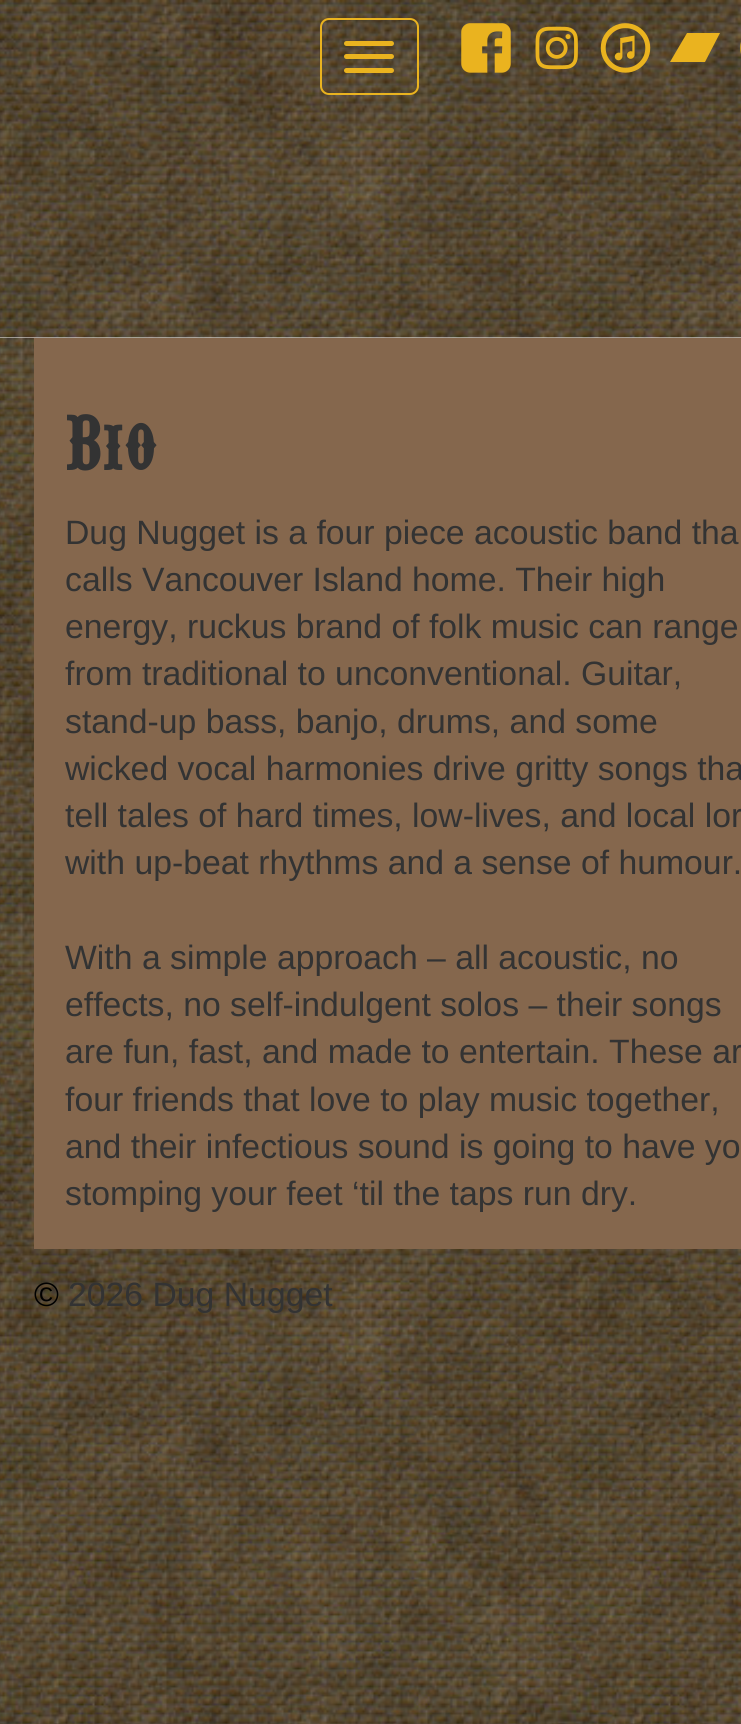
import math
import cairo

surface = cairo.ImageSurface(cairo.FORMAT_RGB24, 741, 1724)
c = cairo.Context(surface)
options = cairo.FontOptions()
options.set_hint_metrics(cairo.HINT_METRICS_OFF)
options.set_hint_style(cairo.HINT_STYLE_NONE)
c.set_font_options(options)
c.set_miter_limit(4)
def C(code):
 c.set_source_rgb(*(v / 255 for v in bytes.fromhex(code[-6:])))
def F(family, size, italic, bold):
 c.select_font_face(family, cairo.FONT_SLANT_ITALIC if italic else cairo.FONT_SLANT_NORMAL, cairo.FONT_WEIGHT_BOLD if bold else cairo.FONT_WEIGHT_NORMAL)
 c.set_font_size(size)
def T(x, y, s):
 c.move_to(x, y)
 c.show_text(s)
def R(x, y, w, h):
 c.rectangle(x, y, w, h)
 c.fill()
def Q(x, y, w, h, r):
 c.new_sub_path()
 for i, (u, v) in enumerate([(x + w - r, y + h - r), (x + r, y + h - r), (x + r, y + r), (x + w - r, y + r)]):
  c.arc(u, v, r, i * math.pi / 2, (i + 1) * math.pi / 2)
 c.close_path()
def I(path, x, y, w, h):
 c.save()
 c.set_source_surface(cairo.ImageSurface.create_from_png(path), x, y)
 c.rectangle(x, y, w, h)
 c.fill()
 c.restore()
C('ffffff')
c.paint()
I('1.png',0,1350,741,374)
I('2.png',0,338,741,1012)
C('f8f8f8')
R(0,337,741,1)
I('3.png',0,0,741,338)
Q(321,19,97,75,8)
C('eab31f')
c.stroke()
Q(344,41,50,5,2.5)
c.fill()
Q(344,54,50,5,2.5)
c.fill()
Q(344,68,50,5,2.5)
c.fill()
I('4.png',461,23,50,50)
I('5.png',535,26,43,44)
I('6.png',600,23,51,50)
c.new_path()
c.move_to(670,62)
c.line_to(705,62)
c.line_to(720,33)
c.line_to(687,33)
c.close_path()
c.fill()
I('7.png',740,42,1,12)
C('85674d')
R(34,338,707,911)
F('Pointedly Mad',81,0,0)
C('333333')
T(65,470,'Bio')
F('Liberation Sans',33.75,0,0)
T(65,544,'Dug Nugget is a four piece acoustic band tha')
T(65,591,'calls Vancouver Island home. Their high')
T(65,638,'energy, ruckus brand of folk music can range')
T(65,685,'from traditional to unconventional. Guitar,')
T(65,733,'stand-up bass, banjo, drums, and some')
T(65,780,'wicked vocal harmonies drive gritty songs tha')
T(65,827,'tell tales of hard times, low-lives, and local lor')
T(65,874,'with up-beat rhythms and a sense of humour.')
T(65,969,'With a simple approach – all acoustic, no')
T(65,1016,'effects, no self-indulgent solos – their songs')
T(65,1063,'are fun, fast, and made to entertain. These ar')
T(65,1111,'four friends that love to play music together,')
T(65,1158,'and their infectious sound is going to have yo')
T(65,1205,'stomping your feet ‘til the taps run dry.')
C('000000')
T(34,1306,'©')
C('333333')
T(68,1306,'2026 Dug Nugget')
surface.write_to_png('o.png')
